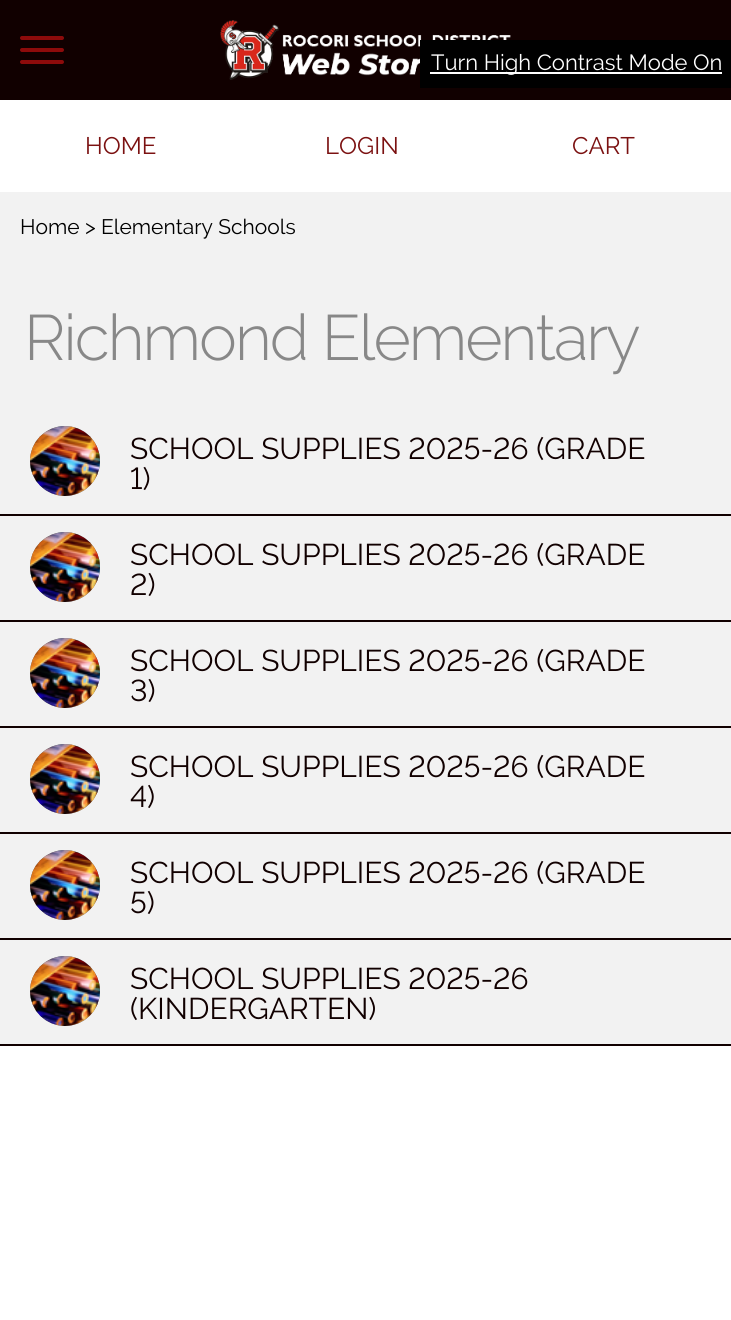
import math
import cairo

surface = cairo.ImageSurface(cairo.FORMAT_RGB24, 731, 1320)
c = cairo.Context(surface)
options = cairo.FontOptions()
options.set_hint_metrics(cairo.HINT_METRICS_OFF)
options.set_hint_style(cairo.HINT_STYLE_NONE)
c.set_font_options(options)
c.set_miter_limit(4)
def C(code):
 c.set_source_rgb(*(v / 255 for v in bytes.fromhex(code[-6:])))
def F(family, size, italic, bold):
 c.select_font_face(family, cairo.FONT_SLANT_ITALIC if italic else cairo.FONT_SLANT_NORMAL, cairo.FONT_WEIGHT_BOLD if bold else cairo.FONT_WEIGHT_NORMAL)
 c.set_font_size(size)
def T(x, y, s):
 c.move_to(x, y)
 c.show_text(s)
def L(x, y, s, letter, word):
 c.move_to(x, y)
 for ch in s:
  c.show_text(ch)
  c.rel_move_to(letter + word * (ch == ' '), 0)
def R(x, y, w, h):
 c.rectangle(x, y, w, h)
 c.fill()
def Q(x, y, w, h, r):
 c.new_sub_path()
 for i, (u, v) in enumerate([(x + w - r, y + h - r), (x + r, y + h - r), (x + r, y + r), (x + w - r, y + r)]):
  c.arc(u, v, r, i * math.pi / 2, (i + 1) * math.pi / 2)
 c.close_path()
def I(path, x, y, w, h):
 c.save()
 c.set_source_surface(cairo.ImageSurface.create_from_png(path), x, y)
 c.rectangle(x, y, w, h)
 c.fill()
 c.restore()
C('ffffff')
c.paint()
C('110000')
R(0,0,731,100)
C('8d0b0b')
Q(20,36,44,4,2)
c.fill()
Q(20,48,44,4,2)
c.fill()
Q(20,60,44,4,2)
c.fill()
I('1.png',220,20,291,60)
C('000000')
R(420,40,311,48)
C('ffffff')
R(430,72,292,2)
F('Raleway',22,0,0)
T(431,70,'Turn High Contrast Mode On')
F('Raleway',24,0,0)
C('7b1111')
T(85,154,'HOME')
T(325,154,'LOGIN')
T(572,154,'CART')
C('f2f2f2')
R(0,192,731,852)
F('Raleway',21,0,0)
C('000000')
T(20,234,'Home > Elementary Schools')
F('Raleway Light',64,0,0)
C('888888')
L(24,360,'Richmond Elementary',-2,0)
C('110000')
R(0,514,731,2)
C('6b6a6a')
c.new_path()
c.arc(65,461,35,0,2 * math.pi)
c.fill()
I('2.png',30,426,70,70)
F('Raleway',30,0,0)
C('110000')
T(130,459,'SCHOOL SUPPLIES 2025-26 (GRADE')
T(130,489,'1)')
R(0,620,731,2)
C('6b6a6a')
c.new_path()
c.arc(65,567,35,0,2 * math.pi)
c.fill()
I('2.png',30,532,70,70)
C('110000')
T(130,565,'SCHOOL SUPPLIES 2025-26 (GRADE')
T(130,595,'2)')
R(0,726,731,2)
C('6b6a6a')
c.new_path()
c.arc(65,673,35,0,2 * math.pi)
c.fill()
I('2.png',30,638,70,70)
C('110000')
T(130,671,'SCHOOL SUPPLIES 2025-26 (GRADE')
T(130,701,'3)')
R(0,832,731,2)
C('6b6a6a')
c.new_path()
c.arc(65,779,35,0,2 * math.pi)
c.fill()
I('3.png',30,744,70,70)
C('110000')
T(130,777,'SCHOOL SUPPLIES 2025-26 (GRADE')
T(130,807,'4)')
R(0,938,731,2)
C('6b6a6a')
c.new_path()
c.arc(65,885,35,0,2 * math.pi)
c.fill()
I('2.png',30,850,70,70)
C('110000')
T(130,883,'SCHOOL SUPPLIES 2025-26 (GRADE')
T(130,913,'5)')
R(0,1044,731,2)
C('6b6a6a')
c.new_path()
c.arc(65,991,35,0,2 * math.pi)
c.fill()
I('4.png',30,956,70,70)
C('110000')
T(130,989,'SCHOOL SUPPLIES 2025-26')
T(130,1019,'(KINDERGARTEN)')
surface.write_to_png('o.png')
